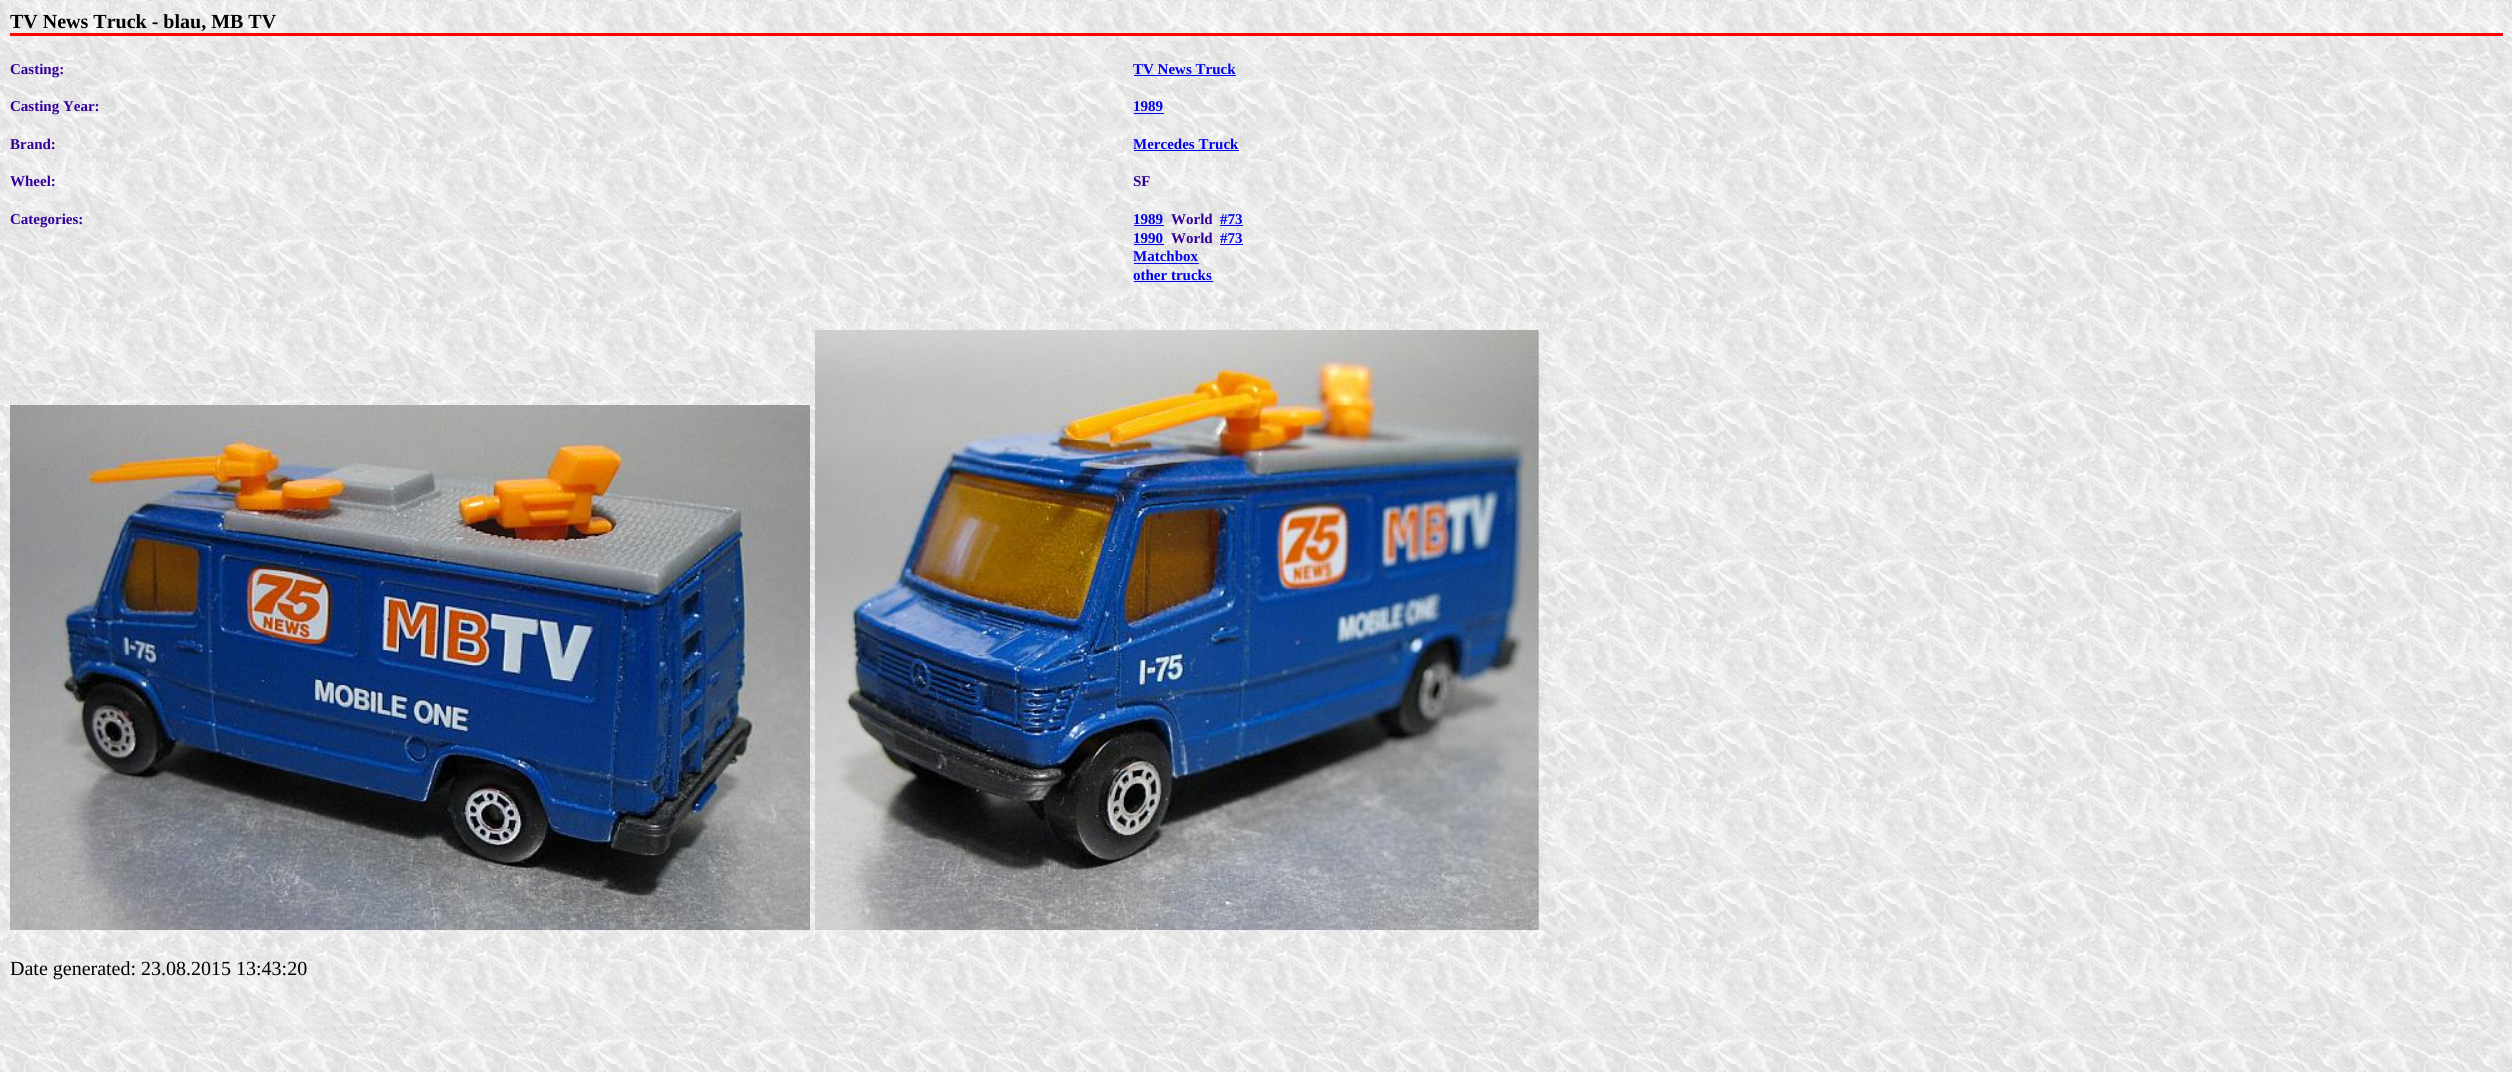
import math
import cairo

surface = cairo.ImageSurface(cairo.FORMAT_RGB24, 2512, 1072)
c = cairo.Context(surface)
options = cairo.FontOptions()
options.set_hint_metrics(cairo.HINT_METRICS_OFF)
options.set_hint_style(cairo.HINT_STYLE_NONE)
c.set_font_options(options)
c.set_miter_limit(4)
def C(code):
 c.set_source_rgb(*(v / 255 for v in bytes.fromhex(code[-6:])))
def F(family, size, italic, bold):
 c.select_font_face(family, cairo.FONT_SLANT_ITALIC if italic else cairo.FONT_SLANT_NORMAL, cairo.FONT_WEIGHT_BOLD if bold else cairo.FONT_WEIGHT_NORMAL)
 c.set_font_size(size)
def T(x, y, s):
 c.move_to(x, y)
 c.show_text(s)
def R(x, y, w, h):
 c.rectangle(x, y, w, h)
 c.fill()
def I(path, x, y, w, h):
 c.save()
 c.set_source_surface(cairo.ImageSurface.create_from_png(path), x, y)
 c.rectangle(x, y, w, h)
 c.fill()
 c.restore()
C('ffffff')
c.paint()
I('1.png',0,0,2512,1072)
C('ff0000')
R(10,33,2493,3)
F('Liberation Serif',20,0,1)
C('000000')
T(10,28,'TV News Truck - blau, MB TV')
F('Liberation Serif',15,0,1)
C('330099')
T(10,74,'Casting:')
T(10,111,'Casting Year:')
T(10,149,'Brand:')
T(10,186,'Wheel:')
T(10,224,'Categories:')
C('0000ee')
T(1133,74,'TV News Truck')
R(1134,75,102,1)
T(1133,111,'1989')
R(1134,113,30,1)
T(1133,149,'Mercedes Truck')
R(1134,150,105,1)
C('330099')
T(1133,186,'SF')
C('0000ee')
T(1133,224,'1989')
R(1134,225,30,1)
C('330099')
T(1171,224,'World')
C('0000ee')
T(1220,224,'#73')
R(1220,225,23,1)
T(1133,243,'1990')
R(1134,244,30,1)
C('330099')
T(1171,243,'World')
C('0000ee')
T(1220,243,'#73')
R(1220,244,23,1)
T(1133,261,'Matchbox')
R(1134,263,65,1)
T(1133,280,'other trucks')
R(1134,281,79,1)
I('2.png',10,405,800,525)
I('3.png',815,330,724,600)
F('Liberation Serif',20,0,0)
C('000000')
T(10,975,'Date generated: 23.08.2015 13:43:20')
surface.write_to_png('o.png')
